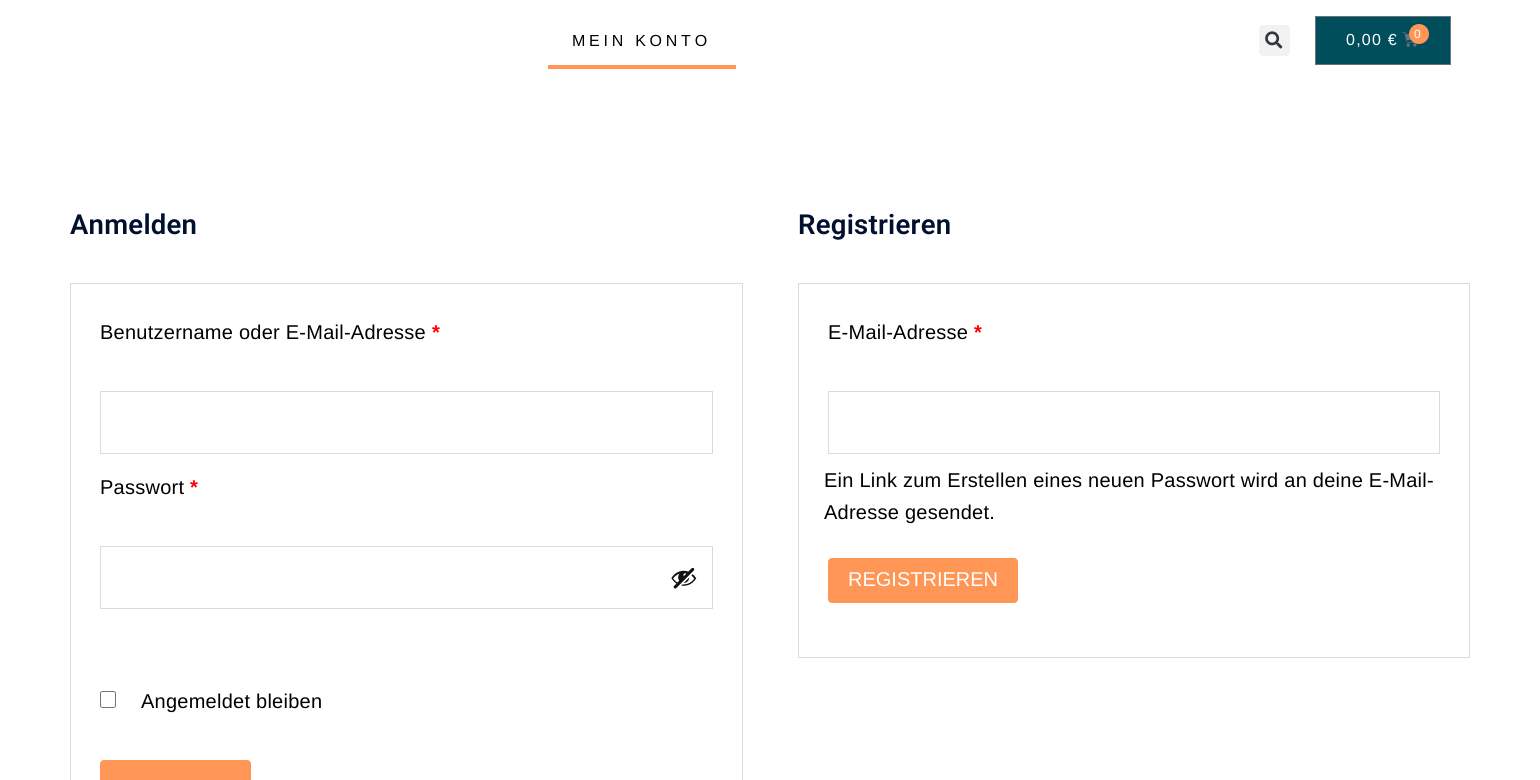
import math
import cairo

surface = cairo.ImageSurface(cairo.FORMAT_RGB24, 1540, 780)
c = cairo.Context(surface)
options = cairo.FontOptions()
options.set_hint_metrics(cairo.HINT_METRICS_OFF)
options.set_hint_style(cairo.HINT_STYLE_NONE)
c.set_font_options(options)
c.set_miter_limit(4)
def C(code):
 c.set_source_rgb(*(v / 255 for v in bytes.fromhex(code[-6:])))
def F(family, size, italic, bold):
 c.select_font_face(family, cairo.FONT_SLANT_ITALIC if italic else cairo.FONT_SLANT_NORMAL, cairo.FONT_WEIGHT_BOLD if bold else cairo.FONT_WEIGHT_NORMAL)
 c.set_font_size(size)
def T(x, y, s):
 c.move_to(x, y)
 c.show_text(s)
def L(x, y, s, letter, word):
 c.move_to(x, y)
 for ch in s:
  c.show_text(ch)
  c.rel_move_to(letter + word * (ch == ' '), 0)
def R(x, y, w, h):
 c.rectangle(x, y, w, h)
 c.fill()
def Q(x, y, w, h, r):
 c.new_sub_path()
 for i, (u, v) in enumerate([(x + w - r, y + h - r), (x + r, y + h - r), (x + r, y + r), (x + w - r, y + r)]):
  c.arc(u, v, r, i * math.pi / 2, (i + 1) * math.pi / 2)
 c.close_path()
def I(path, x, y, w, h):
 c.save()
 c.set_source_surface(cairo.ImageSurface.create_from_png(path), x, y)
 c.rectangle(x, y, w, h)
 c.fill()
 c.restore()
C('ffffff')
c.paint()
F('Liberation Sans',16,0,0)
C('000000')
L(572,46,'MEIN KONTO',3.75,0)
C('ff9655')
R(548,65,188,4)
C('f2f2f2')
Q(1259,25,31,31,4)
c.fill()
I('1.png',1265,31,18,18)
C('004e5c')
c.rectangle(1315.5,16.5,135,48)
c.fill_preserve()
C('69727d')
c.set_line_width(1)
c.stroke()
C('ffffff')
L(1346,45,'0,00 €',1.25,0)
I('2.png',1402,32,15,15)
C('ff9655')
c.arc(1419,34,10,0,2 * math.pi)
c.fill()
F('Liberation Sans',12,0,0)
C('ffffff')
L(1414,38,'0',1.25,0)
F('Roboto SemiBold',27.5,0,0)
C('00102e')
L(70,234,'Anmelden',.25,0)
c.rectangle(70.5,283.5,672,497)
C('dbdbdb')
c.stroke()
F('Liberation Sans',20,0,0)
C('000000')
L(100,339,'Benutzername oder E-Mail-Adresse',.25,0)
F('Liberation Sans',20,0,1)
C('ff0000')
L(432,339,'*',.25,0)
c.rectangle(100.5,391.5,612,62)
C('dbdbdb')
c.stroke()
F('Liberation Sans',20,0,0)
C('000000')
L(100,494,'Passwort',.25,0)
F('Liberation Sans',20,0,1)
C('ff0000')
L(190,494,'*',.25,0)
c.rectangle(100.5,546.5,612,62)
C('dbdbdb')
c.stroke()
I('3.png',671,567,26,22)
Q(100.5,691.5,15,16,2)
C('767676')
c.stroke()
F('Liberation Sans',20,0,0)
C('000000')
L(141,708,'Angemeldet bleiben',.25,0)
C('ff9655')
Q(100,760,151,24,4)
c.fill()
F('Roboto SemiBold',27.5,0,0)
C('00102e')
L(798,234,'Registrieren',.25,0)
c.rectangle(798.5,283.5,671,374)
C('dbdbdb')
c.stroke()
F('Liberation Sans',20,0,0)
C('000000')
L(828,339,'E-Mail-Adresse',.25,0)
F('Liberation Sans',20,0,1)
C('ff0000')
L(974,339,'*',.25,0)
c.rectangle(828.5,391.5,611,62)
C('dbdbdb')
c.stroke()
F('Liberation Sans',20,0,0)
C('000000')
L(824,487,'Ein Link zum Erstellen eines neuen Passwort wird an deine E-Mail-',.25,0)
L(824,519,'Adresse gesendet.',.25,0)
C('ff9655')
Q(828,558,190,45,4)
c.fill()
C('ffffff')
T(848,586,'REGISTRIEREN')
surface.write_to_png('o.png')
